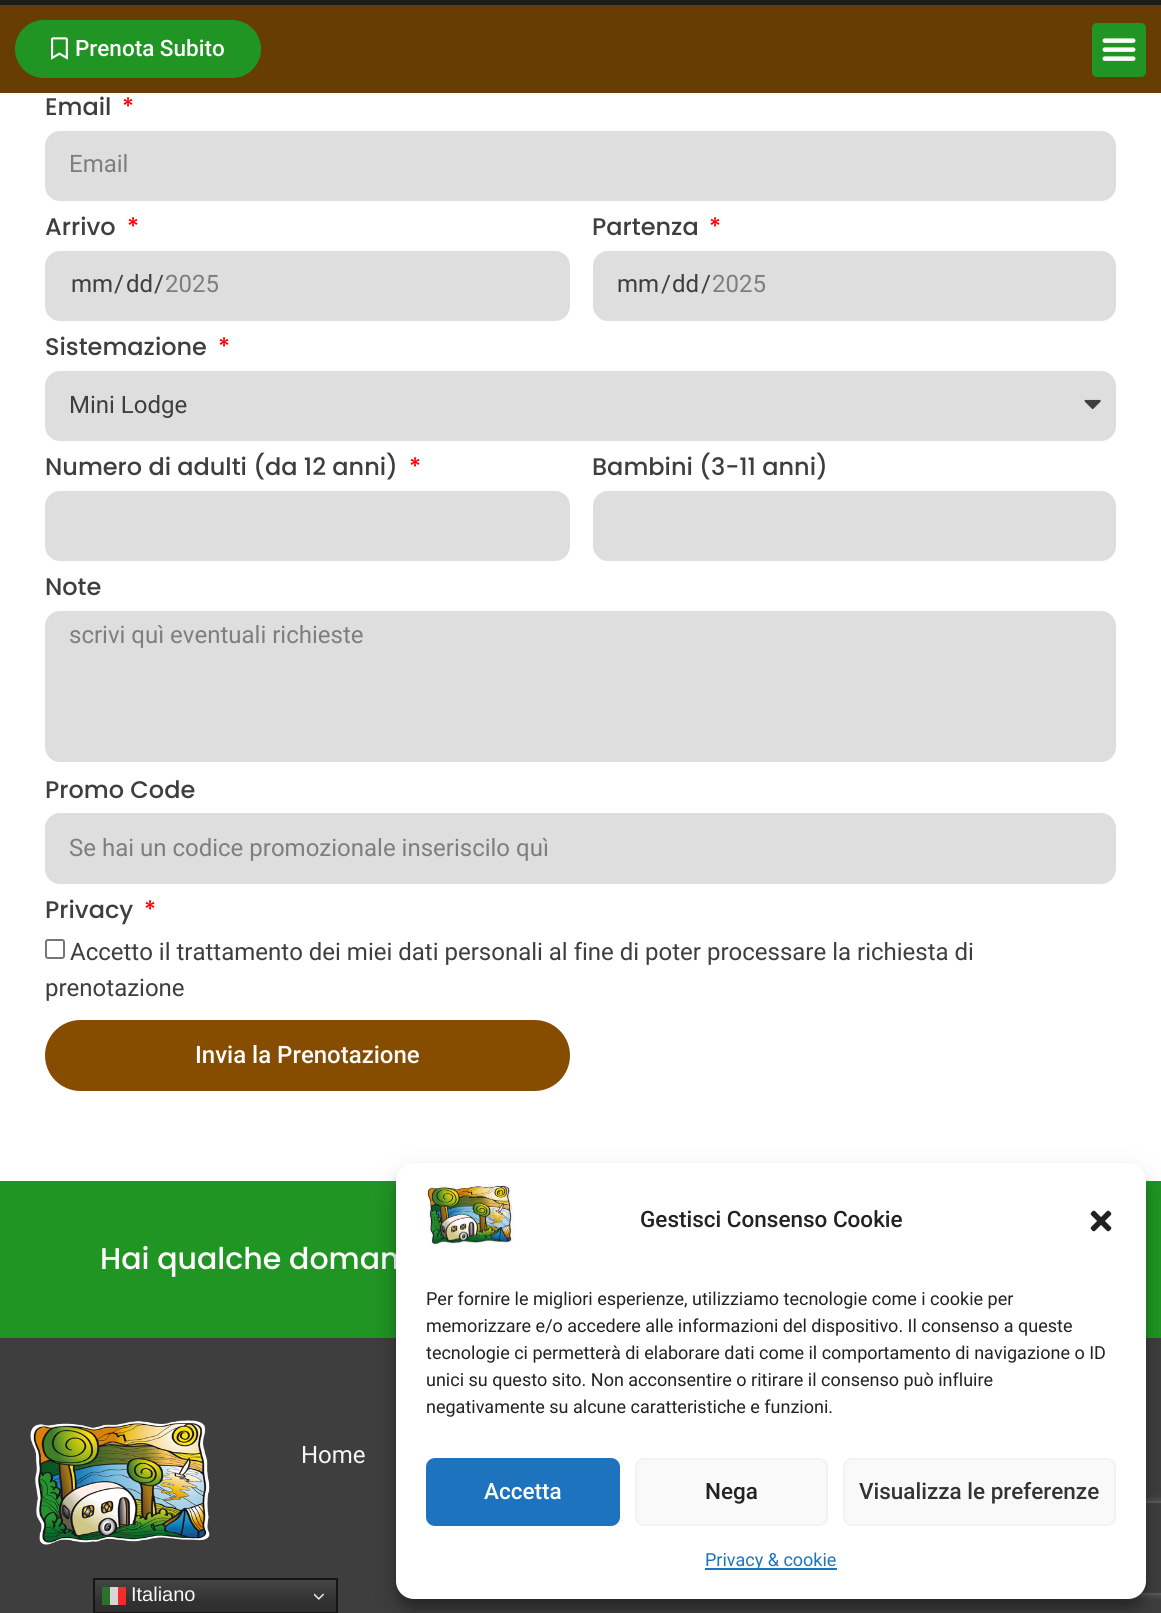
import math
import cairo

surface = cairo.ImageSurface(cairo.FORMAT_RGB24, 1161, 1613)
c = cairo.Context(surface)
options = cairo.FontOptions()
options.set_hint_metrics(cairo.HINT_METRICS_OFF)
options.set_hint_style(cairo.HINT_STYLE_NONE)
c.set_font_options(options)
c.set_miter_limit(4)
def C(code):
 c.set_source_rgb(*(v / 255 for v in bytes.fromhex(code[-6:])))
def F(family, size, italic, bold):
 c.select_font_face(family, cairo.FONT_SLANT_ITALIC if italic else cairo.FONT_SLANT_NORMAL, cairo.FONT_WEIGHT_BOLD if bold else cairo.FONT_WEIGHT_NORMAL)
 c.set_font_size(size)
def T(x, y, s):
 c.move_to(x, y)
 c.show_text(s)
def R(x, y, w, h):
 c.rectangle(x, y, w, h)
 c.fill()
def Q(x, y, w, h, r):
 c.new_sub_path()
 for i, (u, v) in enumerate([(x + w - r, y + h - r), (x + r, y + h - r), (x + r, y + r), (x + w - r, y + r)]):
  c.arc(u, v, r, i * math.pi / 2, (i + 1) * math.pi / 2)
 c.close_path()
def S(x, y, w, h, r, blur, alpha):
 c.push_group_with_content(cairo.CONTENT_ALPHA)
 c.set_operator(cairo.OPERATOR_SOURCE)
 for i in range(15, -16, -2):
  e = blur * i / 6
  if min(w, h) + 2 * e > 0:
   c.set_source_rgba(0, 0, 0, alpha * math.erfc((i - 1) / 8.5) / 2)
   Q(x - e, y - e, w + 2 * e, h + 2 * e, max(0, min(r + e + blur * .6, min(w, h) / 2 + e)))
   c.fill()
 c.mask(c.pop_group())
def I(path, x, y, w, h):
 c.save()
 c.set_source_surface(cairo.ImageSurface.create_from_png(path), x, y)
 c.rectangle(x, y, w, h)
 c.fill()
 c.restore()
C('ffffff')
c.paint()
C('683d03')
R(0,5,1161,88)
C('1d1d1d')
R(0,0,1161,5)
C('209524')
Q(15,20,246,58,29)
c.fill()
I('1.png',51,37,17,23)
F('Roboto Medium',22.5,0,0)
C('ffffff')
T(75,56,'Prenota Subito')
C('209524')
Q(1092,23,54,54,5)
c.fill()
I('2.png',1102,38,34,23)
F('Poppins Medium',24,0,0)
C('3e3e3e')
T(45,115,'Email')
C('ff0000')
T(122,115,'*')
C('dedede')
Q(45,131,1071,70,15)
c.fill()
F('Roboto',24,0,0)
C('7e7e7e')
T(69,172,'Email')
F('Poppins Medium',24,0,0)
C('3e3e3e')
T(45,235,'Arrivo')
C('ff0000')
T(127,235,'*')
C('dedede')
Q(45,251,525,70,15)
c.fill()
F('Roboto',24,0,0)
C('3e3e3e')
T(71,292,'mm')
T(114,292,'/')
T(126,292,'dd')
T(154,292,'/')
C('7e7e7e')
T(165,292,'2025')
F('Poppins Medium',24,0,0)
C('3e3e3e')
T(592,235,'Partenza')
C('ff0000')
T(709,235,'*')
C('dedede')
Q(593,251,523,70,15)
c.fill()
F('Roboto',24,0,0)
C('3e3e3e')
T(617,292,'mm')
T(661,292,'/')
T(672,292,'dd')
T(701,292,'/')
C('7e7e7e')
T(712,292,'2025')
F('Poppins Medium',24,0,0)
C('3e3e3e')
T(45,355,'Sistemazione')
C('ff0000')
T(218,355,'*')
C('dedede')
Q(45,371,1071,70,15)
c.fill()
F('Roboto',24,0,0)
C('3e3e3e')
T(69,413,'Mini Lodge')
I('3.png',1084,399,17,11)
F('Poppins Medium',24,0,0)
T(45,475,'Numero di adulti (da 12 anni)')
C('ff0000')
T(409,475,'*')
C('dedede')
Q(45,491,525,70,15)
c.fill()
C('3e3e3e')
T(592,475,'Bambini (3-11 anni)')
C('dedede')
Q(593,491,523,70,15)
c.fill()
C('3e3e3e')
T(45,595,'Note')
C('dedede')
Q(45,611,1071,151,15)
c.fill()
F('Roboto',24,0,0)
C('7e7e7e')
T(69,643,'scrivi quì eventuali richieste')
F('Poppins Medium',24,0,0)
C('3e3e3e')
T(45,798,'Promo Code')
C('dedede')
Q(45,813,1071,71,15)
c.fill()
F('Roboto',24,0,0)
C('7e7e7e')
T(69,856,'Se hai un codice promozionale inseriscilo quì')
F('Poppins Medium',24,0,0)
C('3e3e3e')
T(45,918,'Privacy')
C('ff0000')
T(144,918,'*')
Q(46,940,18,18,2)
C('767676')
c.stroke()
F('Roboto',24,0,0)
C('3e3e3e')
T(70,960,'Accetto il trattamento dei miei dati personali al fine di poter processare la richiesta di')
T(45,996,'prenotazione')
C('864d00')
Q(45,1020,525,71,35.5)
c.fill()
F('Roboto Medium',24,0,0)
C('ffffff')
T(195,1063,'Invia la Prenotazione')
C('3e3e3e')
R(0,1338,1161,275)
c.save()
c.set_fill_rule(cairo.FILL_RULE_EVEN_ODD)
c.new_path()
c.move_to(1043,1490)
c.line_to(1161,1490)
c.line_to(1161,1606)
c.line_to(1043,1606)
c.close_path()
c.move_to(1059,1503)
c.line_to(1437,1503)
c.curve_to(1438.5,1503,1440,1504.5,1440,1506)
c.line_to(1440,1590)
c.curve_to(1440,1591.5,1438.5,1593,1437,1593)
c.line_to(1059,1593)
c.curve_to(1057.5,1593,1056,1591.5,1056,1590)
c.line_to(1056,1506)
c.curve_to(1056,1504.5,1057.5,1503,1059,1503)
c.close_path()
c.clip()
C('808080')
S(1056,1503,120,90,3,4,1)
c.restore()
C('209524')
R(0,1181,1161,157)
F('Poppins Medium',30,0,0)
C('ffffff')
T(100,1269,'Hai qualche doman')
I('4.png',30,1420,180,125)
F('Roboto',24,0,0)
C('f6f6f6')
T(301,1463,'Home')
C('000000')
S(396,1172,750,436,18,4.5,.23)
S(396,1178,750,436,18,15,.19)
C('ffffff')
Q(396,1163,750,436,18)
c.fill()
I('5.png',426,1185,87,60)
F('Roboto Medium',22.5,0,0)
C('222222')
T(640,1227,'Gestisci Consenso Cookie')
I('6.png',1090,1210,22,22)
F('Roboto',18,0,0)
T(426,1305,'Per fornire le migliori esperienze, utilizziamo tecnologie come i cookie per')
T(426,1332,'memorizzare e/o accedere alle informazioni del dispositivo. Il consenso a queste')
T(426,1359,'tecnologie ci permetterà di elaborare dati come il comportamento di navigazione o ID')
T(426,1386,'unici su questo sito. Non acconsentire o ritirare il consenso può influire')
T(426,1413,'negativamente su alcune caratteristiche e funzioni.')
C('1e73be')
Q(427,1459,192,66,8)
c.fill_preserve()
c.stroke()
F('Roboto Medium',22.5,0,0)
C('ffffff')
T(484,1499,'Accetta')
C('f9f9f9')
Q(636,1459,191,66,8)
c.fill_preserve()
C('f2f2f2')
c.stroke()
C('222222')
T(705,1499,'Nega')
C('f9f9f9')
Q(844,1459,271,66,8)
c.fill_preserve()
C('f2f2f2')
c.stroke()
C('333333')
T(859,1499,'Visualizza le preferenze')
C('1e73be')
R(705,1568,132,2)
F('Roboto',18,0,0)
T(705,1566,'Privacy & cookie')
gradient = cairo.LinearGradient(215,1578,215,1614)
gradient.add_color_stop_rgba(0,0.278,0.278,0.278,1)
gradient.add_color_stop_rgba(.7,0.188,0.188,0.188,1)
c.set_source(gradient)
R(95,1580,241,32)
gradient = cairo.LinearGradient(215,1578,215,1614)
gradient.add_color_stop_rgba(0,0.855,0.855,0.855,1)
gradient.add_color_stop_rgba(.7,0.839,0.839,0.839,1)
c.set_source(gradient)
R(110,1587,8,18)
gradient = cairo.LinearGradient(215,1578,215,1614)
gradient.add_color_stop_rgba(0,0.961,0.173,0.173,1)
gradient.add_color_stop_rgba(.7,0.957,0.169,0.169,1)
c.set_source(gradient)
R(118,1587,8,18)
gradient = cairo.LinearGradient(215,1578,215,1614)
gradient.add_color_stop_rgba(0,0.173,0.443,0.173,1)
gradient.add_color_stop_rgba(.7,0.169,0.439,0.169,1)
c.set_source(gradient)
R(102,1587,8,18)
c.rectangle(94,1579,243,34)
C('161616')
c.stroke()
F('Liberation Sans',20,0,0)
C('f6f6f6')
T(131,1601,'Italiano')
I('7.png',314,1593,10,7)
surface.write_to_png('o.png')
